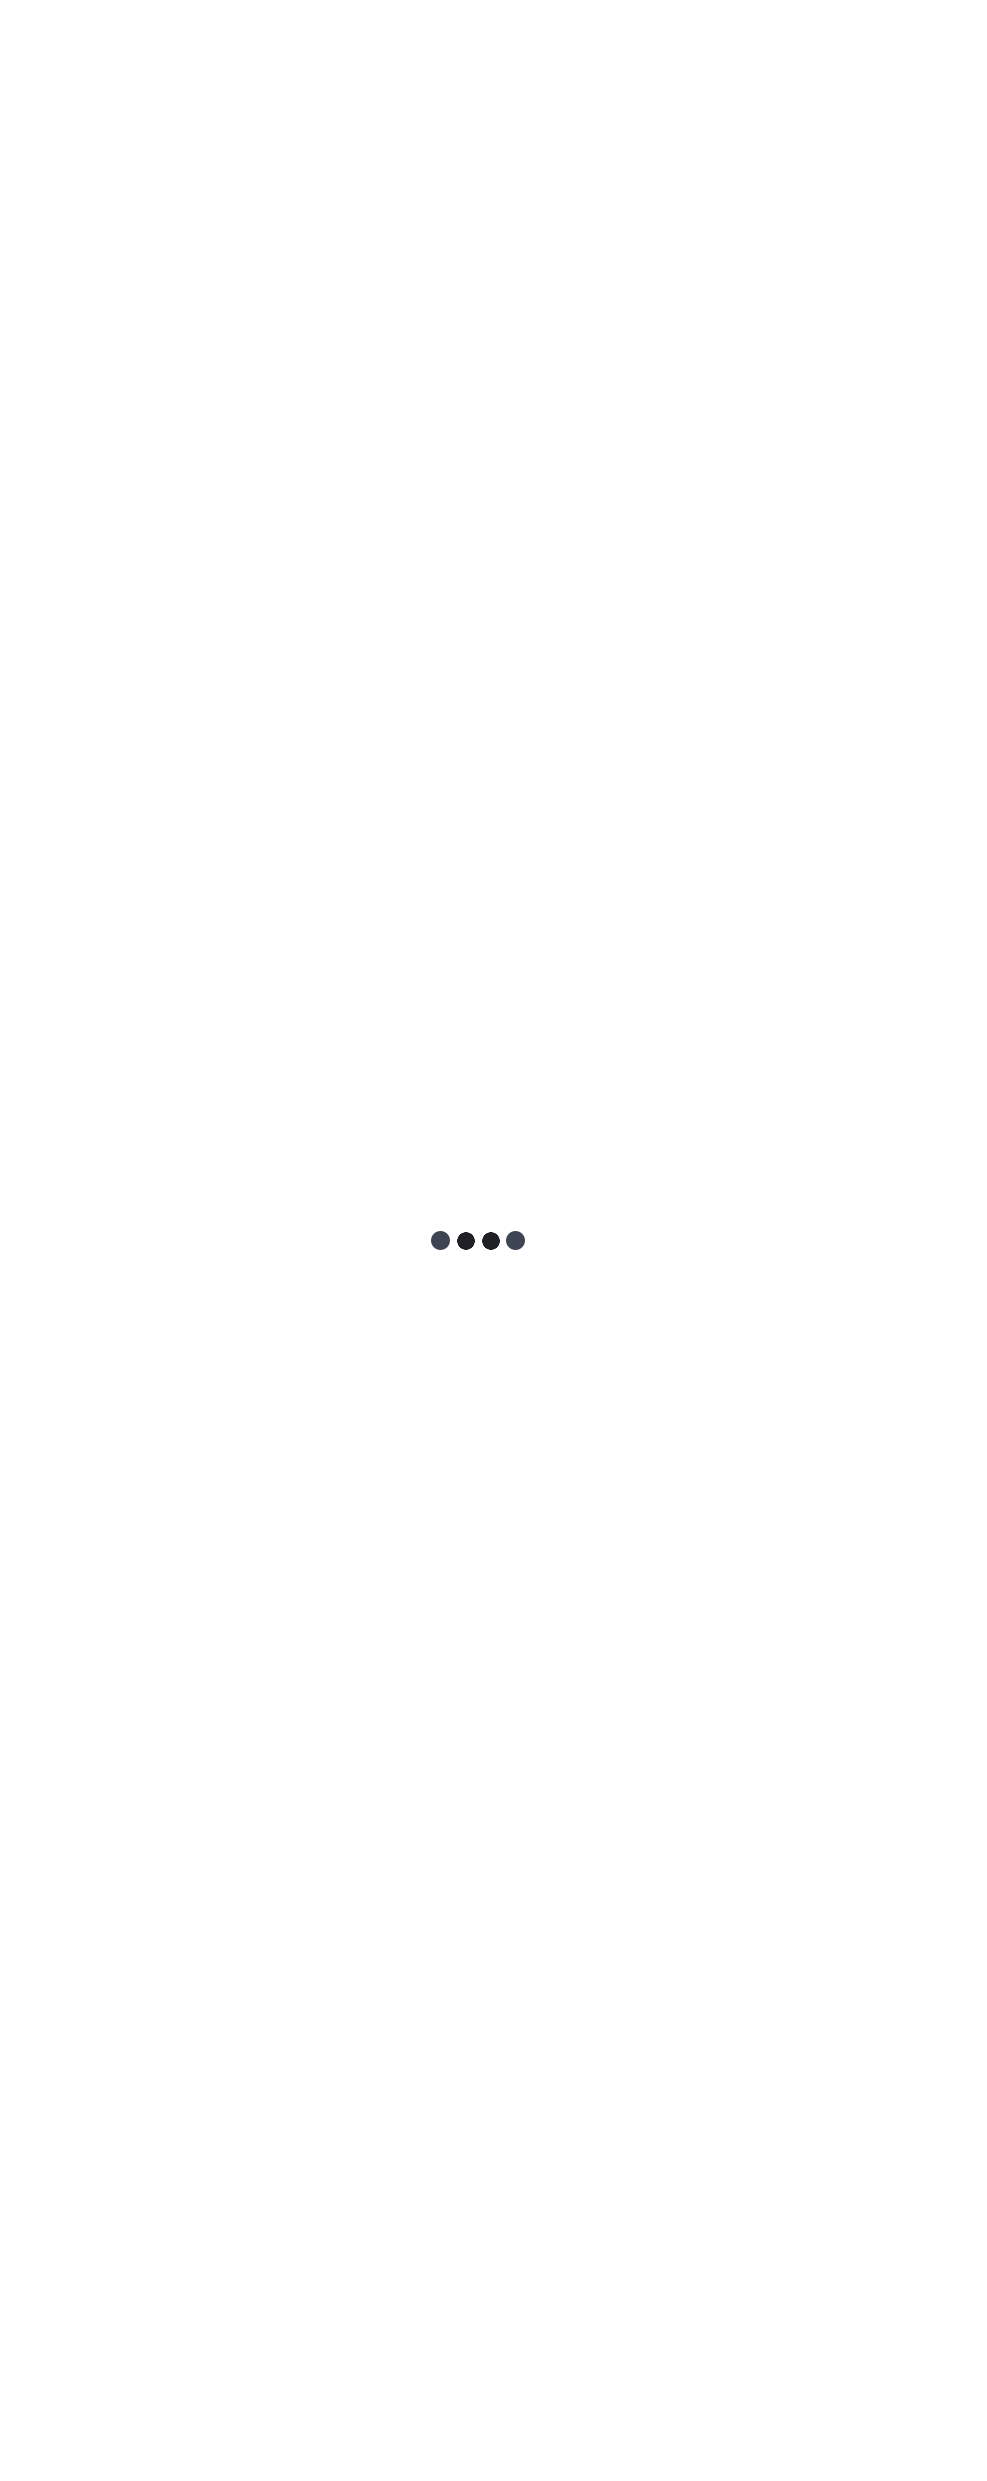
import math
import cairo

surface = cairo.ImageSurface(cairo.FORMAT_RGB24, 987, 2481)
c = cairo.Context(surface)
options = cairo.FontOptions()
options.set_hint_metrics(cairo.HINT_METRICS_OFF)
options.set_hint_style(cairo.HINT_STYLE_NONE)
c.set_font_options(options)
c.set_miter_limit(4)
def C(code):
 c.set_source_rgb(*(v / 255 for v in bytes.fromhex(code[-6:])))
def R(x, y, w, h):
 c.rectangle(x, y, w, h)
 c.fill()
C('ffffff')
c.paint()
gradient = cairo.RadialGradient(491,1241,0,491,1241,9)
gradient.add_color_stop_rgba(.95,0.125,0.129,0.141,1)
gradient.add_color_stop_rgba(1,1,1,1,1)
c.set_source(gradient)
R(482,1232,18,18)
gradient = cairo.RadialGradient(466,1241,0,466,1241,9)
gradient.add_color_stop_rgba(.95,0.125,0.129,0.141,1)
gradient.add_color_stop_rgba(1,1,1,1,1)
c.set_source(gradient)
R(457,1232,18,18)
C('3d4452')
c.arc(440.5,1240.5,9.5,0,2 * math.pi)
c.fill()
c.arc(515.5,1240.5,9.5,0,2 * math.pi)
c.fill()
surface.write_to_png('o.png')
